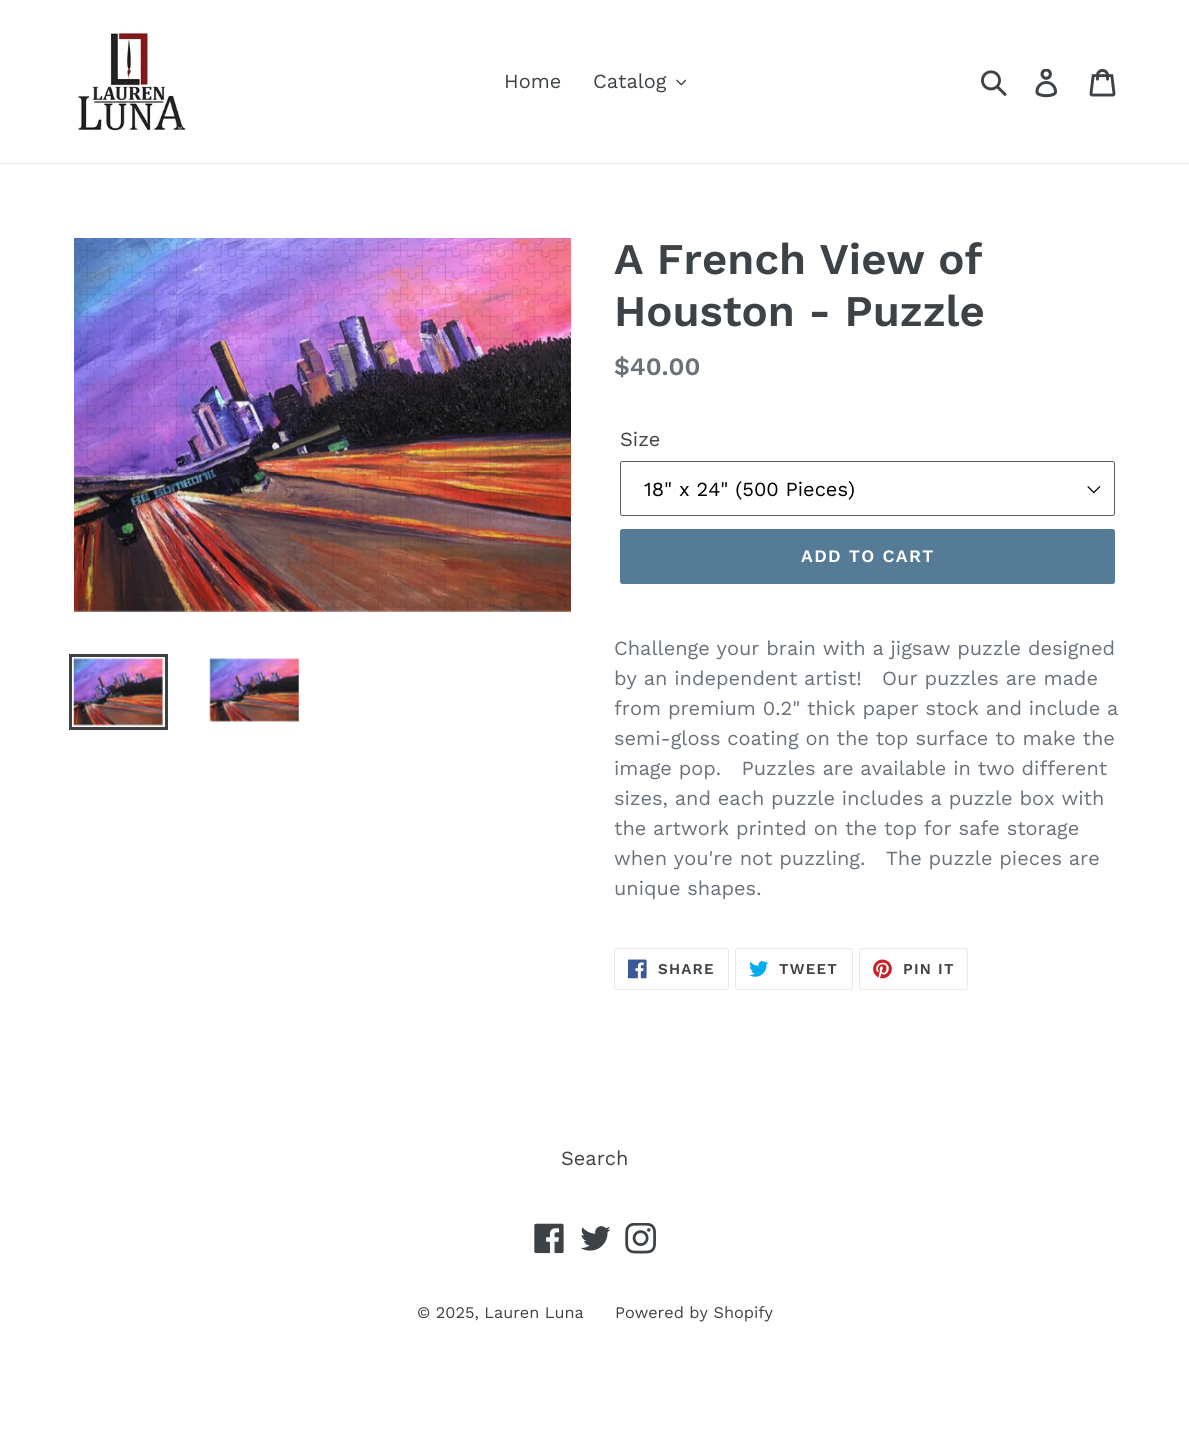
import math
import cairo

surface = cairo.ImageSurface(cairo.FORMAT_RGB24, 1189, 1436)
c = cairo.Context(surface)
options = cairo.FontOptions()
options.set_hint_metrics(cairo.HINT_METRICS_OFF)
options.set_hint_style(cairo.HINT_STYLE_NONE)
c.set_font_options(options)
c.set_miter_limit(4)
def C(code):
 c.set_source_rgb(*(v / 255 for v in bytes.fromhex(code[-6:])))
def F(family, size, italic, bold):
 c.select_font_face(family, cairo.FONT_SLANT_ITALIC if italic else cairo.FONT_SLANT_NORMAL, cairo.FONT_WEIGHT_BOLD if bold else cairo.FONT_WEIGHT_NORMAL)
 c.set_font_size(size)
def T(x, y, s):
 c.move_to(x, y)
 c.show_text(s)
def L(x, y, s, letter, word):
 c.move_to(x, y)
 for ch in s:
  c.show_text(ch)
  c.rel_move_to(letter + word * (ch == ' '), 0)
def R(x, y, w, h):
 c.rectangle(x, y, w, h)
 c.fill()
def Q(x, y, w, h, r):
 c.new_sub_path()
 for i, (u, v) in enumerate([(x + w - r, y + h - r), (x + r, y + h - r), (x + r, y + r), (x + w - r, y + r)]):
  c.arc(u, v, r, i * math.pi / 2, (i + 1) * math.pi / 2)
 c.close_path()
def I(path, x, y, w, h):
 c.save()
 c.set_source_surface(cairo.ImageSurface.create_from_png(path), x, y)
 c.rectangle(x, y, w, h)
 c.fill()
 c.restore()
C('ffffff')
c.paint()
C('e8e9eb')
R(0,163,1189,1)
I('1.png',78,30,108,101)
F('Work Sans',20,0,0)
C('3d4246')
T(504,88,'Home')
T(593,88,'Catalog')
I('2.png',676,79,10,7)
I('3.png',981,70,26,26)
I('4.png',1035,69,23,29)
I('5.png',1089,69,27,28)
I('6.png',74,238,497,374)
c.rectangle(70.5,655.5,96,73)
c.set_line_width(3)
c.stroke()
I('7.png',73,658,90,68)
I('8.png',209,658,90,64)
F('Work Sans SemiBold',43.75,0,0)
T(614,274,'A French View of')
T(614,326,'Houston - Puzzle')
F('Work Sans SemiBold',25,0,0)
C('69727b')
T(614,375,'$40.00')
F('Work Sans',20,0,0)
C('3d4246')
T(620,446,'Size')
I('9.png',1087,486,14,8)
Q(620.5,461.5,494,54,2)
C('5a5e62')
c.set_line_width(1)
c.stroke()
C('000000')
T(644,496,'18" x 24" (500 Pieces)')
C('557b97')
Q(620,529,495,55,2.5)
c.fill()
F('Work Sans SemiBold',17.5,0,0)
C('ffffff')
L(801,562,'ADD TO CART',1.4,0)
F('Work Sans',20,0,0)
C('69727b')
T(614,655,'Challenge your brain with a jigsaw puzzle designed')
T(614,685,'by an independent artist!   Our puzzles are made')
T(614,715,'from premium 0.2" thick paper stock and include a')
T(614,745,'semi-gloss coating on the top surface to make the')
T(614,775,'image pop.   Puzzles are available in two different')
T(614,805,'sizes, and each puzzle includes a puzzle box with')
T(614,835,'the artwork printed on the top for safe storage')
T(614,865,'when you\'re not puzzling.   The puzzle pieces are')
T(614,895,'unique shapes.')
Q(614.5,948.5,114,41,2)
C('e8e9eb')
c.stroke()
I('10.png',628,959,19,20)
F('Work Sans SemiBold',15,0,0)
C('3d4246')
L(658,974,'SHARE',1.25,0)
Q(735.5,948.5,117,41,2)
C('e8e9eb')
c.stroke()
I('11.png',749,961,20,16)
C('3d4246')
L(779,974,'TWEET',1.25,0)
Q(859.5,948.5,108,41,2)
C('e8e9eb')
c.stroke()
I('12.png',873,959,19,20)
C('3d4246')
L(903,974,'PIN IT',1.25,0)
F('Work Sans',20,0,0)
T(561,1165,'Search')
I('13.png',534,1223,30,31)
I('14.png',580,1226,31,25)
I('15.png',625,1223,31,31)
F('Work Sans',16.25,0,0)
T(417,1318,'© 2025, Lauren Luna')
T(615,1318,'Powered by Shopify')
surface.write_to_png('o.png')
